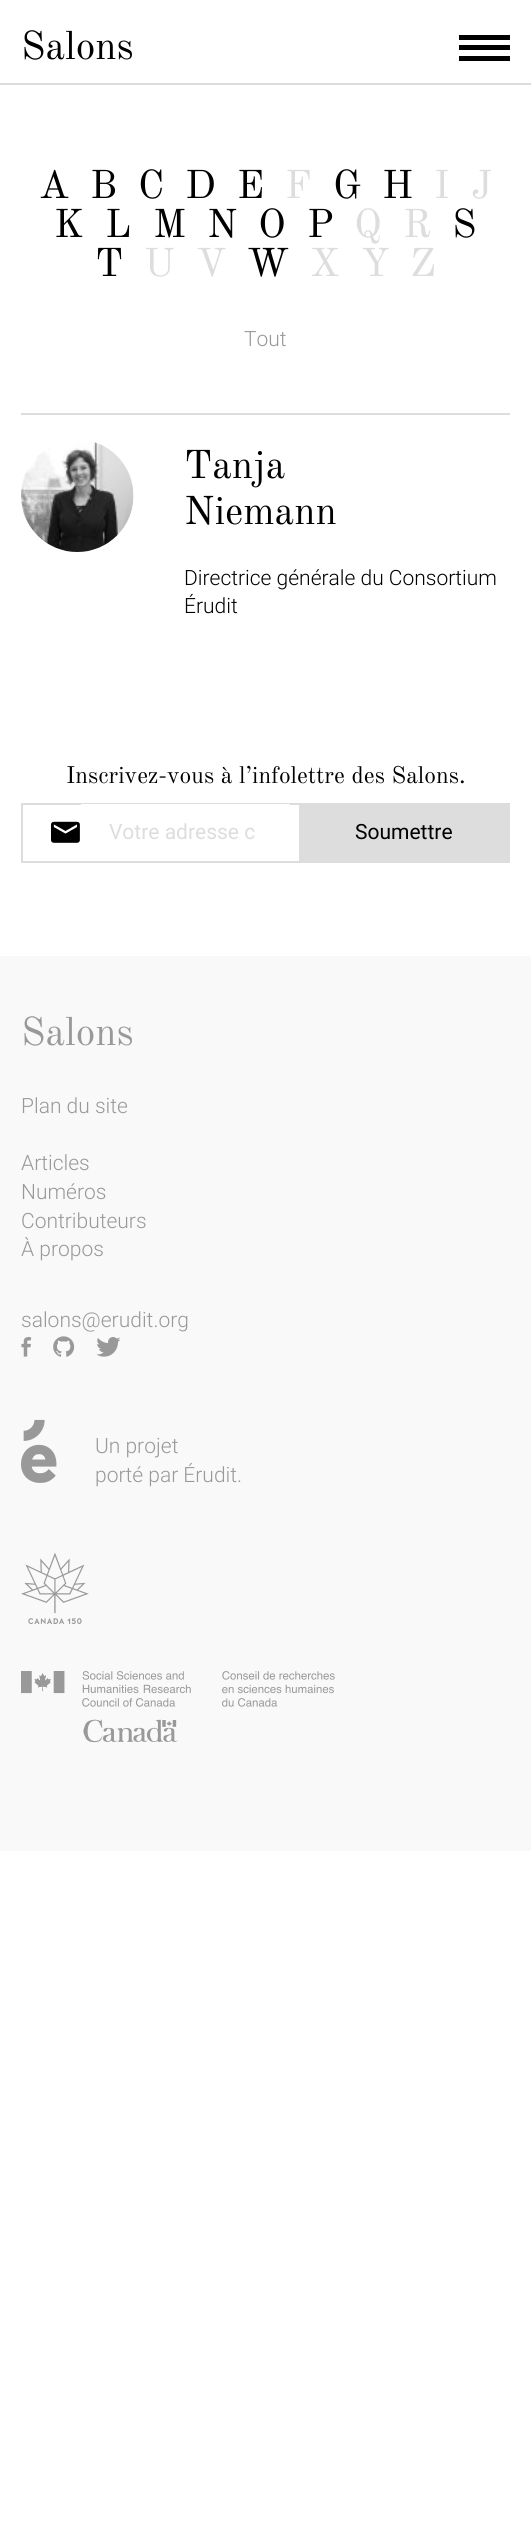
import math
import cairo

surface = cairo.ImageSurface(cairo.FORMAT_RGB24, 531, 2531)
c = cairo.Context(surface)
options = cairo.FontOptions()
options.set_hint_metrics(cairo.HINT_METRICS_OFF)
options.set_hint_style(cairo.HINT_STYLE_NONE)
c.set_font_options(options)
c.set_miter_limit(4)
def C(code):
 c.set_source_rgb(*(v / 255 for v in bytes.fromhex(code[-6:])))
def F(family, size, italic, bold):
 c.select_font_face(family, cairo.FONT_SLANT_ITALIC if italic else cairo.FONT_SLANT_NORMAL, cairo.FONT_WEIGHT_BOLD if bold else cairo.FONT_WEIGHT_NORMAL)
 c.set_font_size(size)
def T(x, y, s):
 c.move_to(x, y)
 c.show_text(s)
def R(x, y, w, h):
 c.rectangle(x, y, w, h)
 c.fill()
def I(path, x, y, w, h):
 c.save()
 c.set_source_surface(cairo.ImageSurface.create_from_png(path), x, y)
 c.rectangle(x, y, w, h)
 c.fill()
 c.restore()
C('ffffff')
c.paint()
C('dddddd')
R(0,83,531,2)
F('Old Standard TT',39.5,0,0)
C('000000')
T(21,59,'Salons')
R(459,45,51,5)
R(459,35,51,5)
R(459,56,51,5)
T(39,198,'A')
T(90,198,'B')
T(138,198,'C')
T(185,198,'D')
T(237,198,'E')
C('dddddd')
T(285,198,'F')
C('000000')
T(333,198,'G')
T(382,198,'H')
C('dddddd')
T(434,198,'I')
T(471,198,'J')
C('000000')
T(54,237,'K')
T(105,237,'L')
T(153,237,'M')
T(207,237,'N')
T(258,237,'O')
T(307,237,'P')
C('dddddd')
T(354,237,'Q')
T(403,237,'R')
C('000000')
T(452,237,'S')
T(95,276,'T')
C('dddddd')
T(144,276,'U')
T(196,276,'V')
C('000000')
T(247,276,'W')
C('dddddd')
T(310,276,'X')
T(361,276,'Y')
T(410,276,'Z')
F('Roboto Light',21,0,0)
C('999999')
T(244,346,'Tout')
C('dddddd')
R(21,413,489,2)
I('1.png',21,442,113,110)
F('Old Standard TT',39.5,0,0)
C('000000')
T(184,478,'Tanja')
T(184,524,'Niemann')
F('Roboto Light',21,0,0)
T(184,585,'Directrice générale du Consortium')
T(184,613,'Érudit')
F('Old Standard TT',23.6,0,0)
T(66,783,'Inscrivez-vous à l’infolettre des Salons.')
c.rectangle(22,804,487,58)
C('dddddd')
c.stroke()
I('2.png',51,821,29,22)
C('ffffff')
R(81,804,209,1)
F('Roboto',21,0,0)
C('dddddd')
T(109,839,'Votre adresse c')
R(299,805,209,56)
C('000000')
T(355,839,'Soumettre')
C('f9f9f9')
R(0,956,531,895)
F('Old Standard TT',39.5,0,0)
C('999999')
T(21,1045,'Salons')
F('Roboto Light',21,0,0)
T(21,1113,'Plan du site')
T(21,1170,'Articles')
T(21,1199,'Numéros')
T(21,1228,'Contributeurs')
T(21,1256,'À propos')
T(21,1327,'salons@erudit.org')
I('3.png',21,1337,11,20)
I('4.png',53,1336,22,21)
I('5.png',96,1337,25,20)
I('6.png',21,1419,36,64)
T(95,1453,'Un projet')
T(95,1482,'porté par Érudit.')
I('7.png',21,1552,68,72)
I('8.png',21,1671,314,72)
surface.write_to_png('o.png')
